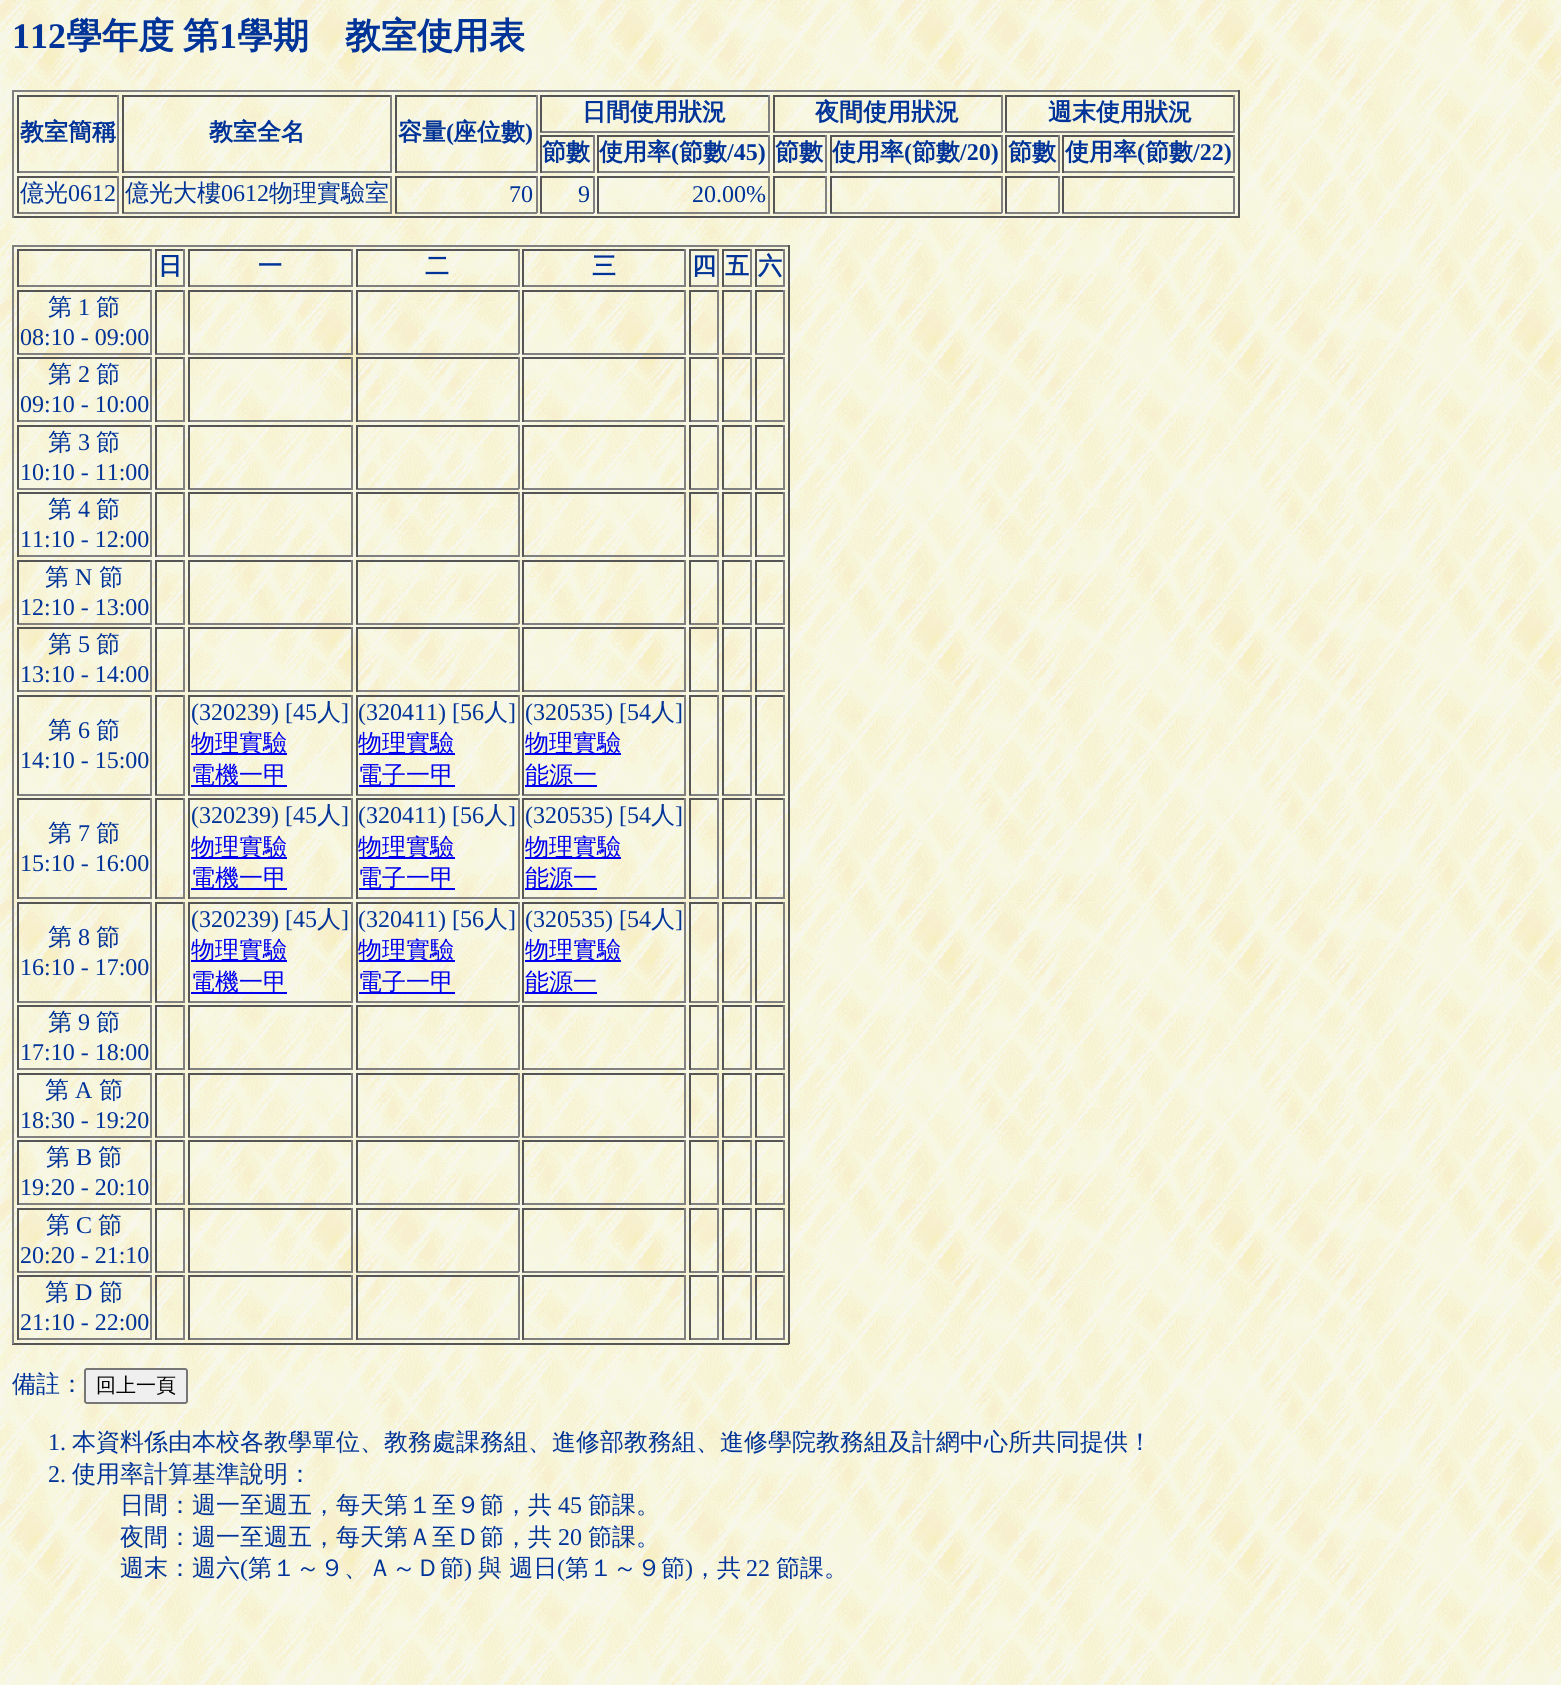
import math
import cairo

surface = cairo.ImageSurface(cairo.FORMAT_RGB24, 1561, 1685)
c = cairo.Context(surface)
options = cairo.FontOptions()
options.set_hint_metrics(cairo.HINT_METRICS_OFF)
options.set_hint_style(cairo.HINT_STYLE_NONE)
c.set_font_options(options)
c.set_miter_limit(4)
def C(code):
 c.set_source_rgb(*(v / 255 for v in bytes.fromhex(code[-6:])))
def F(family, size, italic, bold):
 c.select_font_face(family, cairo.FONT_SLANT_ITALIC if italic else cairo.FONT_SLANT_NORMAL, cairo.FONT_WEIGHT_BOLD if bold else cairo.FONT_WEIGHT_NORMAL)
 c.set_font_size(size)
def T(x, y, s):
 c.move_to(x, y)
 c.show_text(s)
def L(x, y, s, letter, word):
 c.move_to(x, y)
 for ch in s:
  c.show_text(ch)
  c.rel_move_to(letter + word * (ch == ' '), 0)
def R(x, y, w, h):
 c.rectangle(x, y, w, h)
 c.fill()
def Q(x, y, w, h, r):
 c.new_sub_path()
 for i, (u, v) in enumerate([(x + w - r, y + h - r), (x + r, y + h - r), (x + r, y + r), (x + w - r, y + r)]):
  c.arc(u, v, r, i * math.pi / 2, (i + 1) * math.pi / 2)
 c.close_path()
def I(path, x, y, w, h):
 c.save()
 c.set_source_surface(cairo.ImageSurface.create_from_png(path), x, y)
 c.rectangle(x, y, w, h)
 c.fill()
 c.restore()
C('ffffff')
c.paint()
I('1.png',0,0,1561,1685)
F('Liberation Serif',36,0,1)
C('003398')
T(12,48,'112')
F('WenQuanYi Zen Hei',36,0,1)
L(66,48,'學年度 第',0,-2)
F('Liberation Serif',36,0,1)
T(219,48,'1')
F('WenQuanYi Zen Hei',36,0,1)
T(237,48,'學期　教室使用表')
C('808080')
R(12,90,1227,2)
C('555555')
R(1238,90,2,128)
R(12,216,1227,2)
C('808080')
R(12,90,2,128)
C('555555')
R(540,95,230,2)
C('808080')
R(768,95,2,37)
R(540,131,230,2)
C('555555')
R(540,95,2,37)
F('WenQuanYi Zen Hei',24,0,1)
C('003398')
T(582,120,'日間使用狀況')
C('555555')
R(773,95,229,2)
C('808080')
R(1001,95,2,37)
R(773,131,229,2)
C('555555')
R(773,95,2,37)
C('003398')
T(815,120,'夜間使用狀況')
C('555555')
R(1005,95,230,2)
C('808080')
R(1233,95,2,37)
R(1005,131,230,2)
C('555555')
R(1005,95,2,37)
C('003398')
T(1048,120,'週末使用狀況')
C('555555')
R(17,95,102,2)
C('808080')
R(117,95,2,78)
R(17,171,102,2)
C('555555')
R(17,95,2,78)
C('003398')
T(20,140,'教室簡稱')
C('555555')
R(122,95,270,2)
C('808080')
R(390,95,2,78)
R(122,171,270,2)
C('555555')
R(122,95,2,78)
C('003398')
T(209,140,'教室全名')
C('555555')
R(395,95,142,2)
C('808080')
R(536,95,2,78)
R(395,171,142,2)
C('555555')
R(395,95,2,78)
C('003398')
T(398,140,'容量')
F('Liberation Serif',24,0,1)
T(446,140,'(')
F('WenQuanYi Zen Hei',24,0,1)
T(453,140,'座位數')
F('Liberation Serif',24,0,1)
T(525,140,')')
C('555555')
R(540,135,54,2)
C('808080')
R(593,135,2,38)
R(540,171,54,2)
C('555555')
R(540,135,2,38)
F('WenQuanYi Zen Hei',24,0,1)
C('003398')
T(542,160,'節數')
C('555555')
R(597,135,173,2)
C('808080')
R(768,135,2,38)
R(597,171,173,2)
C('555555')
R(597,135,2,38)
C('003398')
T(599,160,'使用率')
F('Liberation Serif',24,0,1)
T(671,160,'(')
F('WenQuanYi Zen Hei',24,0,1)
T(679,160,'節數')
F('Liberation Serif',24,0,1)
T(727,160,'/45)')
C('555555')
R(773,135,54,2)
C('808080')
R(825,135,2,38)
R(773,171,54,2)
C('555555')
R(773,135,2,38)
F('WenQuanYi Zen Hei',24,0,1)
C('003398')
T(775,160,'節數')
C('555555')
R(830,135,172,2)
C('808080')
R(1001,135,2,38)
R(830,171,172,2)
C('555555')
R(830,135,2,38)
C('003398')
T(832,160,'使用率')
F('Liberation Serif',24,0,1)
T(904,160,'(')
F('WenQuanYi Zen Hei',24,0,1)
T(912,160,'節數')
F('Liberation Serif',24,0,1)
T(960,160,'/20)')
C('555555')
R(1005,135,54,2)
C('808080')
R(1058,135,2,38)
R(1005,171,54,2)
C('555555')
R(1005,135,2,38)
F('WenQuanYi Zen Hei',24,0,1)
C('003398')
T(1008,160,'節數')
C('555555')
R(1062,135,173,2)
C('808080')
R(1233,135,2,38)
R(1062,171,173,2)
C('555555')
R(1062,135,2,38)
C('003398')
T(1065,160,'使用率')
F('Liberation Serif',24,0,1)
T(1137,160,'(')
F('WenQuanYi Zen Hei',24,0,1)
T(1145,160,'節數')
F('Liberation Serif',24,0,1)
T(1193,160,'/22)')
C('555555')
R(17,176,102,2)
C('808080')
R(117,176,2,37)
R(17,212,102,2)
C('555555')
R(17,176,2,37)
F('WenQuanYi Zen Hei Medium',24,0,0)
C('003398')
T(20,201,'億光')
F('Liberation Serif',24,0,0)
T(68,201,'0612')
C('555555')
R(122,176,270,2)
C('808080')
R(390,176,2,37)
R(122,212,270,2)
C('555555')
R(122,176,2,37)
F('WenQuanYi Zen Hei Medium',24,0,0)
C('003398')
T(125,201,'億光大樓')
F('Liberation Serif',24,0,0)
T(221,201,'0612')
F('WenQuanYi Zen Hei Medium',24,0,0)
T(269,201,'物理實驗室')
C('555555')
R(395,176,142,2)
C('808080')
R(536,176,2,37)
R(395,212,142,2)
C('555555')
R(395,176,2,37)
F('Liberation Serif',24,0,0)
C('003398')
T(509,202,'70')
C('555555')
R(540,176,54,2)
C('808080')
R(593,176,2,37)
R(540,212,54,2)
C('555555')
R(540,176,2,37)
C('003398')
T(578,202,'9')
C('555555')
R(597,176,173,2)
C('808080')
R(768,176,2,37)
R(597,212,173,2)
C('555555')
R(597,176,2,37)
C('003398')
T(692,202,'20.00%')
C('555555')
R(773,176,54,2)
C('808080')
R(825,176,2,37)
R(773,212,54,2)
C('555555')
R(773,176,2,37)
R(830,176,172,2)
C('808080')
R(1001,176,2,37)
R(830,212,172,2)
C('555555')
R(830,176,2,37)
R(1005,176,54,2)
C('808080')
R(1058,176,2,37)
R(1005,212,54,2)
C('555555')
R(1005,176,2,37)
R(1062,176,173,2)
C('808080')
R(1233,176,2,37)
R(1062,212,173,2)
C('555555')
R(1062,176,2,37)
C('808080')
R(12,245,777,2)
C('555555')
R(788,245,2,1099)
R(12,1343,777,2)
C('808080')
R(12,245,2,1099)
C('555555')
R(17,249,135,2)
C('808080')
R(150,249,2,38)
R(17,285,135,2)
C('555555')
R(17,249,2,38)
R(155,249,30,2)
C('808080')
R(183,249,2,38)
R(155,285,30,2)
C('555555')
R(155,249,2,38)
F('WenQuanYi Zen Hei',24,0,1)
C('003398')
T(158,274,'日')
C('555555')
R(188,249,165,2)
C('808080')
R(351,249,2,38)
R(188,285,165,2)
C('555555')
R(188,249,2,38)
C('003398')
T(258,274,'一')
C('555555')
R(356,249,163,2)
C('808080')
R(518,249,2,38)
R(356,285,163,2)
C('555555')
R(356,249,2,38)
C('003398')
T(425,274,'二')
C('555555')
R(522,249,164,2)
C('808080')
R(684,249,2,38)
R(522,285,164,2)
C('555555')
R(522,249,2,38)
C('003398')
T(592,274,'三')
C('555555')
R(689,249,30,2)
C('808080')
R(717,249,2,38)
R(689,285,30,2)
C('555555')
R(689,249,2,38)
C('003398')
T(692,274,'四')
C('555555')
R(722,249,30,2)
C('808080')
R(750,249,2,38)
R(722,285,30,2)
C('555555')
R(722,249,2,38)
C('003398')
T(725,274,'五')
C('555555')
R(755,249,30,2)
C('808080')
R(783,249,2,38)
R(755,285,30,2)
C('555555')
R(755,249,2,38)
C('003398')
T(758,274,'六')
C('555555')
R(17,290,135,2)
C('808080')
R(150,290,2,64)
R(17,353,135,2)
C('555555')
R(17,290,2,64)
F('WenQuanYi Zen Hei Medium',24,0,0)
C('003398')
T(48,315,'第')
F('Liberation Serif',24,0,0)
T(78,315,'1')
F('WenQuanYi Zen Hei Medium',24,0,0)
T(96,315,'節')
F('Liberation Serif',24,0,0)
T(20,345,'08:10 - 09:00')
C('555555')
R(155,290,30,2)
C('808080')
R(183,290,2,64)
R(155,353,30,2)
C('555555')
R(155,290,2,64)
R(188,290,165,2)
C('808080')
R(351,290,2,64)
R(188,353,165,2)
C('555555')
R(188,290,2,64)
R(356,290,163,2)
C('808080')
R(518,290,2,64)
R(356,353,163,2)
C('555555')
R(356,290,2,64)
R(522,290,164,2)
C('808080')
R(684,290,2,64)
R(522,353,164,2)
C('555555')
R(522,290,2,64)
R(689,290,30,2)
C('808080')
R(717,290,2,64)
R(689,353,30,2)
C('555555')
R(689,290,2,64)
R(722,290,30,2)
C('808080')
R(750,290,2,64)
R(722,353,30,2)
C('555555')
R(722,290,2,64)
R(755,290,30,2)
C('808080')
R(783,290,2,64)
R(755,353,30,2)
C('555555')
R(755,290,2,64)
R(17,357,135,2)
C('808080')
R(150,357,2,65)
R(17,420,135,2)
C('555555')
R(17,357,2,65)
F('WenQuanYi Zen Hei Medium',24,0,0)
C('003398')
T(48,382,'第')
F('Liberation Serif',24,0,0)
T(78,382,'2')
F('WenQuanYi Zen Hei Medium',24,0,0)
T(96,382,'節')
F('Liberation Serif',24,0,0)
T(20,412,'09:10 - 10:00')
C('555555')
R(155,357,30,2)
C('808080')
R(183,357,2,65)
R(155,420,30,2)
C('555555')
R(155,357,2,65)
R(188,357,165,2)
C('808080')
R(351,357,2,65)
R(188,420,165,2)
C('555555')
R(188,357,2,65)
R(356,357,163,2)
C('808080')
R(518,357,2,65)
R(356,420,163,2)
C('555555')
R(356,357,2,65)
R(522,357,164,2)
C('808080')
R(684,357,2,65)
R(522,420,164,2)
C('555555')
R(522,357,2,65)
R(689,357,30,2)
C('808080')
R(717,357,2,65)
R(689,420,30,2)
C('555555')
R(689,357,2,65)
R(722,357,30,2)
C('808080')
R(750,357,2,65)
R(722,420,30,2)
C('555555')
R(722,357,2,65)
R(755,357,30,2)
C('808080')
R(783,357,2,65)
R(755,420,30,2)
C('555555')
R(755,357,2,65)
R(17,425,135,2)
C('808080')
R(150,425,2,64)
R(17,488,135,2)
C('555555')
R(17,425,2,64)
F('WenQuanYi Zen Hei Medium',24,0,0)
C('003398')
T(48,450,'第')
F('Liberation Serif',24,0,0)
T(78,450,'3')
F('WenQuanYi Zen Hei Medium',24,0,0)
T(96,450,'節')
F('Liberation Serif',24,0,0)
T(20,480,'10:10 - 11:00')
C('555555')
R(155,425,30,2)
C('808080')
R(183,425,2,64)
R(155,488,30,2)
C('555555')
R(155,425,2,64)
R(188,425,165,2)
C('808080')
R(351,425,2,64)
R(188,488,165,2)
C('555555')
R(188,425,2,64)
R(356,425,163,2)
C('808080')
R(518,425,2,64)
R(356,488,163,2)
C('555555')
R(356,425,2,64)
R(522,425,164,2)
C('808080')
R(684,425,2,64)
R(522,488,164,2)
C('555555')
R(522,425,2,64)
R(689,425,30,2)
C('808080')
R(717,425,2,64)
R(689,488,30,2)
C('555555')
R(689,425,2,64)
R(722,425,30,2)
C('808080')
R(750,425,2,64)
R(722,488,30,2)
C('555555')
R(722,425,2,64)
R(755,425,30,2)
C('808080')
R(783,425,2,64)
R(755,488,30,2)
C('555555')
R(755,425,2,64)
R(17,492,135,2)
C('808080')
R(150,492,2,65)
R(17,555,135,2)
C('555555')
R(17,492,2,65)
F('WenQuanYi Zen Hei Medium',24,0,0)
C('003398')
T(48,517,'第')
F('Liberation Serif',24,0,0)
T(78,517,'4')
F('WenQuanYi Zen Hei Medium',24,0,0)
T(96,517,'節')
F('Liberation Serif',24,0,0)
T(20,547,'11:10 - 12:00')
C('555555')
R(155,492,30,2)
C('808080')
R(183,492,2,65)
R(155,555,30,2)
C('555555')
R(155,492,2,65)
R(188,492,165,2)
C('808080')
R(351,492,2,65)
R(188,555,165,2)
C('555555')
R(188,492,2,65)
R(356,492,163,2)
C('808080')
R(518,492,2,65)
R(356,555,163,2)
C('555555')
R(356,492,2,65)
R(522,492,164,2)
C('808080')
R(684,492,2,65)
R(522,555,164,2)
C('555555')
R(522,492,2,65)
R(689,492,30,2)
C('808080')
R(717,492,2,65)
R(689,555,30,2)
C('555555')
R(689,492,2,65)
R(722,492,30,2)
C('808080')
R(750,492,2,65)
R(722,555,30,2)
C('555555')
R(722,492,2,65)
R(755,492,30,2)
C('808080')
R(783,492,2,65)
R(755,555,30,2)
C('555555')
R(755,492,2,65)
R(17,560,135,2)
C('808080')
R(150,560,2,64)
R(17,623,135,2)
C('555555')
R(17,560,2,64)
F('WenQuanYi Zen Hei Medium',24,0,0)
C('003398')
T(45,585,'第')
F('Liberation Serif',24,0,0)
T(75,585,'N')
F('WenQuanYi Zen Hei Medium',24,0,0)
T(99,585,'節')
F('Liberation Serif',24,0,0)
T(20,615,'12:10 - 13:00')
C('555555')
R(155,560,30,2)
C('808080')
R(183,560,2,64)
R(155,623,30,2)
C('555555')
R(155,560,2,64)
R(188,560,165,2)
C('808080')
R(351,560,2,64)
R(188,623,165,2)
C('555555')
R(188,560,2,64)
R(356,560,163,2)
C('808080')
R(518,560,2,64)
R(356,623,163,2)
C('555555')
R(356,560,2,64)
R(522,560,164,2)
C('808080')
R(684,560,2,64)
R(522,623,164,2)
C('555555')
R(522,560,2,64)
R(689,560,30,2)
C('808080')
R(717,560,2,64)
R(689,623,30,2)
C('555555')
R(689,560,2,64)
R(722,560,30,2)
C('808080')
R(750,560,2,64)
R(722,623,30,2)
C('555555')
R(722,560,2,64)
R(755,560,30,2)
C('808080')
R(783,560,2,64)
R(755,623,30,2)
C('555555')
R(755,560,2,64)
R(17,627,135,2)
C('808080')
R(150,627,2,65)
R(17,690,135,2)
C('555555')
R(17,627,2,65)
F('WenQuanYi Zen Hei Medium',24,0,0)
C('003398')
T(48,652,'第')
F('Liberation Serif',24,0,0)
T(78,652,'5')
F('WenQuanYi Zen Hei Medium',24,0,0)
T(96,652,'節')
F('Liberation Serif',24,0,0)
T(20,682,'13:10 - 14:00')
C('555555')
R(155,627,30,2)
C('808080')
R(183,627,2,65)
R(155,690,30,2)
C('555555')
R(155,627,2,65)
R(188,627,165,2)
C('808080')
R(351,627,2,65)
R(188,690,165,2)
C('555555')
R(188,627,2,65)
R(356,627,163,2)
C('808080')
R(518,627,2,65)
R(356,690,163,2)
C('555555')
R(356,627,2,65)
R(522,627,164,2)
C('808080')
R(684,627,2,65)
R(522,690,164,2)
C('555555')
R(522,627,2,65)
R(689,627,30,2)
C('808080')
R(717,627,2,65)
R(689,690,30,2)
C('555555')
R(689,627,2,65)
R(722,627,30,2)
C('808080')
R(750,627,2,65)
R(722,690,30,2)
C('555555')
R(722,627,2,65)
R(755,627,30,2)
C('808080')
R(783,627,2,65)
R(755,690,30,2)
C('555555')
R(755,627,2,65)
R(17,695,135,2)
C('808080')
R(150,695,2,100)
R(17,794,135,2)
C('555555')
R(17,695,2,100)
F('WenQuanYi Zen Hei Medium',24,0,0)
C('003398')
T(48,738,'第')
F('Liberation Serif',24,0,0)
T(78,738,'6')
F('WenQuanYi Zen Hei Medium',24,0,0)
T(96,738,'節')
F('Liberation Serif',24,0,0)
T(20,768,'14:10 - 15:00')
C('555555')
R(155,695,30,2)
C('808080')
R(183,695,2,100)
R(155,794,30,2)
C('555555')
R(155,695,2,100)
R(188,695,165,2)
C('808080')
R(351,695,2,100)
R(188,794,165,2)
C('555555')
R(188,695,2,100)
C('003398')
T(191,720,'(320239) [45')
F('WenQuanYi Zen Hei Medium',24,0,0)
T(317,720,'人')
F('Liberation Serif',24,0,0)
T(341,720,']')
C('0000ee')
R(191,753,96,2)
F('WenQuanYi Zen Hei Medium',24,0,0)
T(191,751,'物理實驗')
R(191,785,96,2)
T(191,783,'電機一甲')
C('555555')
R(356,695,163,2)
C('808080')
R(518,695,2,100)
R(356,794,163,2)
C('555555')
R(356,695,2,100)
F('Liberation Serif',24,0,0)
C('003398')
T(358,720,'(320411) [56')
F('WenQuanYi Zen Hei Medium',24,0,0)
T(484,720,'人')
F('Liberation Serif',24,0,0)
T(508,720,']')
C('0000ee')
R(359,753,96,2)
F('WenQuanYi Zen Hei Medium',24,0,0)
T(358,751,'物理實驗')
R(359,785,96,2)
T(358,783,'電子一甲')
C('555555')
R(522,695,164,2)
C('808080')
R(684,695,2,100)
R(522,794,164,2)
C('555555')
R(522,695,2,100)
F('Liberation Serif',24,0,0)
C('003398')
T(525,720,'(320535) [54')
F('WenQuanYi Zen Hei Medium',24,0,0)
T(651,720,'人')
F('Liberation Serif',24,0,0)
T(675,720,']')
C('0000ee')
R(525,753,96,2)
F('WenQuanYi Zen Hei Medium',24,0,0)
T(525,751,'物理實驗')
R(525,785,72,2)
T(525,783,'能源一')
C('555555')
R(689,695,30,2)
C('808080')
R(717,695,2,100)
R(689,794,30,2)
C('555555')
R(689,695,2,100)
R(722,695,30,2)
C('808080')
R(750,695,2,100)
R(722,794,30,2)
C('555555')
R(722,695,2,100)
R(755,695,30,2)
C('808080')
R(783,695,2,100)
R(755,794,30,2)
C('555555')
R(755,695,2,100)
R(17,798,135,2)
C('808080')
R(150,798,2,101)
R(17,897,135,2)
C('555555')
R(17,798,2,101)
C('003398')
T(48,841,'第')
F('Liberation Serif',24,0,0)
T(78,841,'7')
F('WenQuanYi Zen Hei Medium',24,0,0)
T(96,841,'節')
F('Liberation Serif',24,0,0)
T(20,871,'15:10 - 16:00')
C('555555')
R(155,798,30,2)
C('808080')
R(183,798,2,101)
R(155,897,30,2)
C('555555')
R(155,798,2,101)
R(188,798,165,2)
C('808080')
R(351,798,2,101)
R(188,897,165,2)
C('555555')
R(188,798,2,101)
C('003398')
T(191,823,'(320239) [45')
F('WenQuanYi Zen Hei Medium',24,0,0)
T(317,823,'人')
F('Liberation Serif',24,0,0)
T(341,823,']')
C('0000ee')
R(191,857,96,2)
F('WenQuanYi Zen Hei Medium',24,0,0)
T(191,855,'物理實驗')
R(191,888,96,2)
T(191,886,'電機一甲')
C('555555')
R(356,798,163,2)
C('808080')
R(518,798,2,101)
R(356,897,163,2)
C('555555')
R(356,798,2,101)
F('Liberation Serif',24,0,0)
C('003398')
T(358,823,'(320411) [56')
F('WenQuanYi Zen Hei Medium',24,0,0)
T(484,823,'人')
F('Liberation Serif',24,0,0)
T(508,823,']')
C('0000ee')
R(359,857,96,2)
F('WenQuanYi Zen Hei Medium',24,0,0)
T(358,855,'物理實驗')
R(359,888,96,2)
T(358,886,'電子一甲')
C('555555')
R(522,798,164,2)
C('808080')
R(684,798,2,101)
R(522,897,164,2)
C('555555')
R(522,798,2,101)
F('Liberation Serif',24,0,0)
C('003398')
T(525,823,'(320535) [54')
F('WenQuanYi Zen Hei Medium',24,0,0)
T(651,823,'人')
F('Liberation Serif',24,0,0)
T(675,823,']')
C('0000ee')
R(525,857,96,2)
F('WenQuanYi Zen Hei Medium',24,0,0)
T(525,855,'物理實驗')
R(525,888,72,2)
T(525,886,'能源一')
C('555555')
R(689,798,30,2)
C('808080')
R(717,798,2,101)
R(689,897,30,2)
C('555555')
R(689,798,2,101)
R(722,798,30,2)
C('808080')
R(750,798,2,101)
R(722,897,30,2)
C('555555')
R(722,798,2,101)
R(755,798,30,2)
C('808080')
R(783,798,2,101)
R(755,897,30,2)
C('555555')
R(755,798,2,101)
R(17,902,135,2)
C('808080')
R(150,902,2,100)
R(17,1001,135,2)
C('555555')
R(17,902,2,100)
C('003398')
T(48,945,'第')
F('Liberation Serif',24,0,0)
T(78,945,'8')
F('WenQuanYi Zen Hei Medium',24,0,0)
T(96,945,'節')
F('Liberation Serif',24,0,0)
T(20,975,'16:10 - 17:00')
C('555555')
R(155,902,30,2)
C('808080')
R(183,902,2,100)
R(155,1001,30,2)
C('555555')
R(155,902,2,100)
R(188,902,165,2)
C('808080')
R(351,902,2,100)
R(188,1001,165,2)
C('555555')
R(188,902,2,100)
C('003398')
T(191,927,'(320239) [45')
F('WenQuanYi Zen Hei Medium',24,0,0)
T(317,927,'人')
F('Liberation Serif',24,0,0)
T(341,927,']')
C('0000ee')
R(191,960,96,2)
F('WenQuanYi Zen Hei Medium',24,0,0)
T(191,958,'物理實驗')
R(191,992,96,2)
T(191,990,'電機一甲')
C('555555')
R(356,902,163,2)
C('808080')
R(518,902,2,100)
R(356,1001,163,2)
C('555555')
R(356,902,2,100)
F('Liberation Serif',24,0,0)
C('003398')
T(358,927,'(320411) [56')
F('WenQuanYi Zen Hei Medium',24,0,0)
T(484,927,'人')
F('Liberation Serif',24,0,0)
T(508,927,']')
C('0000ee')
R(359,960,96,2)
F('WenQuanYi Zen Hei Medium',24,0,0)
T(358,958,'物理實驗')
R(359,992,96,2)
T(358,990,'電子一甲')
C('555555')
R(522,902,164,2)
C('808080')
R(684,902,2,100)
R(522,1001,164,2)
C('555555')
R(522,902,2,100)
F('Liberation Serif',24,0,0)
C('003398')
T(525,927,'(320535) [54')
F('WenQuanYi Zen Hei Medium',24,0,0)
T(651,927,'人')
F('Liberation Serif',24,0,0)
T(675,927,']')
C('0000ee')
R(525,960,96,2)
F('WenQuanYi Zen Hei Medium',24,0,0)
T(525,958,'物理實驗')
R(525,992,72,2)
T(525,990,'能源一')
C('555555')
R(689,902,30,2)
C('808080')
R(717,902,2,100)
R(689,1001,30,2)
C('555555')
R(689,902,2,100)
R(722,902,30,2)
C('808080')
R(750,902,2,100)
R(722,1001,30,2)
C('555555')
R(722,902,2,100)
R(755,902,30,2)
C('808080')
R(783,902,2,100)
R(755,1001,30,2)
C('555555')
R(755,902,2,100)
R(17,1005,135,2)
C('808080')
R(150,1005,2,65)
R(17,1068,135,2)
C('555555')
R(17,1005,2,65)
C('003398')
T(48,1030,'第')
F('Liberation Serif',24,0,0)
T(78,1030,'9')
F('WenQuanYi Zen Hei Medium',24,0,0)
T(96,1030,'節')
F('Liberation Serif',24,0,0)
T(20,1060,'17:10 - 18:00')
C('555555')
R(155,1005,30,2)
C('808080')
R(183,1005,2,65)
R(155,1068,30,2)
C('555555')
R(155,1005,2,65)
R(188,1005,165,2)
C('808080')
R(351,1005,2,65)
R(188,1068,165,2)
C('555555')
R(188,1005,2,65)
R(356,1005,163,2)
C('808080')
R(518,1005,2,65)
R(356,1068,163,2)
C('555555')
R(356,1005,2,65)
R(522,1005,164,2)
C('808080')
R(684,1005,2,65)
R(522,1068,164,2)
C('555555')
R(522,1005,2,65)
R(689,1005,30,2)
C('808080')
R(717,1005,2,65)
R(689,1068,30,2)
C('555555')
R(689,1005,2,65)
R(722,1005,30,2)
C('808080')
R(750,1005,2,65)
R(722,1068,30,2)
C('555555')
R(722,1005,2,65)
R(755,1005,30,2)
C('808080')
R(783,1005,2,65)
R(755,1068,30,2)
C('555555')
R(755,1005,2,65)
R(17,1073,135,2)
C('808080')
R(150,1073,2,64)
R(17,1136,135,2)
C('555555')
R(17,1073,2,64)
F('WenQuanYi Zen Hei Medium',24,0,0)
C('003398')
T(45,1098,'第')
F('Liberation Serif',24,0,0)
T(75,1098,'A')
F('WenQuanYi Zen Hei Medium',24,0,0)
T(99,1098,'節')
F('Liberation Serif',24,0,0)
T(20,1128,'18:30 - 19:20')
C('555555')
R(155,1073,30,2)
C('808080')
R(183,1073,2,64)
R(155,1136,30,2)
C('555555')
R(155,1073,2,64)
R(188,1073,165,2)
C('808080')
R(351,1073,2,64)
R(188,1136,165,2)
C('555555')
R(188,1073,2,64)
R(356,1073,163,2)
C('808080')
R(518,1073,2,64)
R(356,1136,163,2)
C('555555')
R(356,1073,2,64)
R(522,1073,164,2)
C('808080')
R(684,1073,2,64)
R(522,1136,164,2)
C('555555')
R(522,1073,2,64)
R(689,1073,30,2)
C('808080')
R(717,1073,2,64)
R(689,1136,30,2)
C('555555')
R(689,1073,2,64)
R(722,1073,30,2)
C('808080')
R(750,1073,2,64)
R(722,1136,30,2)
C('555555')
R(722,1073,2,64)
R(755,1073,30,2)
C('808080')
R(783,1073,2,64)
R(755,1136,30,2)
C('555555')
R(755,1073,2,64)
R(17,1140,135,2)
C('808080')
R(150,1140,2,65)
R(17,1203,135,2)
C('555555')
R(17,1140,2,65)
F('WenQuanYi Zen Hei Medium',24,0,0)
C('003398')
T(46,1165,'第')
F('Liberation Serif',24,0,0)
T(76,1165,'B')
F('WenQuanYi Zen Hei Medium',24,0,0)
T(98,1165,'節')
F('Liberation Serif',24,0,0)
T(20,1195,'19:20 - 20:10')
C('555555')
R(155,1140,30,2)
C('808080')
R(183,1140,2,65)
R(155,1203,30,2)
C('555555')
R(155,1140,2,65)
R(188,1140,165,2)
C('808080')
R(351,1140,2,65)
R(188,1203,165,2)
C('555555')
R(188,1140,2,65)
R(356,1140,163,2)
C('808080')
R(518,1140,2,65)
R(356,1203,163,2)
C('555555')
R(356,1140,2,65)
R(522,1140,164,2)
C('808080')
R(684,1140,2,65)
R(522,1203,164,2)
C('555555')
R(522,1140,2,65)
R(689,1140,30,2)
C('808080')
R(717,1140,2,65)
R(689,1203,30,2)
C('555555')
R(689,1140,2,65)
R(722,1140,30,2)
C('808080')
R(750,1140,2,65)
R(722,1203,30,2)
C('555555')
R(722,1140,2,65)
R(755,1140,30,2)
C('808080')
R(783,1140,2,65)
R(755,1203,30,2)
C('555555')
R(755,1140,2,65)
R(17,1208,135,2)
C('808080')
R(150,1208,2,64)
R(17,1271,135,2)
C('555555')
R(17,1208,2,64)
F('WenQuanYi Zen Hei Medium',24,0,0)
C('003398')
T(46,1233,'第')
F('Liberation Serif',24,0,0)
T(76,1233,'C')
F('WenQuanYi Zen Hei Medium',24,0,0)
T(98,1233,'節')
F('Liberation Serif',24,0,0)
T(20,1263,'20:20 - 21:10')
C('555555')
R(155,1208,30,2)
C('808080')
R(183,1208,2,64)
R(155,1271,30,2)
C('555555')
R(155,1208,2,64)
R(188,1208,165,2)
C('808080')
R(351,1208,2,64)
R(188,1271,165,2)
C('555555')
R(188,1208,2,64)
R(356,1208,163,2)
C('808080')
R(518,1208,2,64)
R(356,1271,163,2)
C('555555')
R(356,1208,2,64)
R(522,1208,164,2)
C('808080')
R(684,1208,2,64)
R(522,1271,164,2)
C('555555')
R(522,1208,2,64)
R(689,1208,30,2)
C('808080')
R(717,1208,2,64)
R(689,1271,30,2)
C('555555')
R(689,1208,2,64)
R(722,1208,30,2)
C('808080')
R(750,1208,2,64)
R(722,1271,30,2)
C('555555')
R(722,1208,2,64)
R(755,1208,30,2)
C('808080')
R(783,1208,2,64)
R(755,1271,30,2)
C('555555')
R(755,1208,2,64)
R(17,1275,135,2)
C('808080')
R(150,1275,2,65)
R(17,1338,135,2)
C('555555')
R(17,1275,2,65)
F('WenQuanYi Zen Hei Medium',24,0,0)
C('003398')
T(45,1300,'第')
F('Liberation Serif',24,0,0)
T(75,1300,'D')
F('WenQuanYi Zen Hei Medium',24,0,0)
T(99,1300,'節')
F('Liberation Serif',24,0,0)
T(20,1330,'21:10 - 22:00')
C('555555')
R(155,1275,30,2)
C('808080')
R(183,1275,2,65)
R(155,1338,30,2)
C('555555')
R(155,1275,2,65)
R(188,1275,165,2)
C('808080')
R(351,1275,2,65)
R(188,1338,165,2)
C('555555')
R(188,1275,2,65)
R(356,1275,163,2)
C('808080')
R(518,1275,2,65)
R(356,1338,163,2)
C('555555')
R(356,1275,2,65)
R(522,1275,164,2)
C('808080')
R(684,1275,2,65)
R(522,1338,164,2)
C('555555')
R(522,1275,2,65)
R(689,1275,30,2)
C('808080')
R(717,1275,2,65)
R(689,1338,30,2)
C('555555')
R(689,1275,2,65)
R(722,1275,30,2)
C('808080')
R(750,1275,2,65)
R(722,1338,30,2)
C('555555')
R(722,1275,2,65)
R(755,1275,30,2)
C('808080')
R(783,1275,2,65)
R(755,1338,30,2)
C('555555')
R(755,1275,2,65)
F('WenQuanYi Zen Hei Medium',24,0,0)
C('003398')
T(12,1392,'備註：')
C('efefef')
Q(85,1369,102,34,2)
c.fill_preserve()
C('767676')
c.stroke()
F('WenQuanYi Zen Hei Medium',20,0,0)
C('000000')
T(96,1392,'回上一頁')
F('Liberation Serif',24,0,0)
C('003398')
T(48,1450,'1.')
F('WenQuanYi Zen Hei Medium',24,0,0)
T(72,1450,'本資料係由本校各教學單位、教務處課務組、進修部教務組、進修學院教務組及計網中心所共同提供！')
F('Liberation Serif',24,0,0)
T(48,1482,'2.')
F('WenQuanYi Zen Hei Medium',24,0,0)
T(72,1482,'使用率計算基準說明：')
T(120,1513,'日間：週一至週五，每天第１至９節，共')
F('Liberation Serif',24,0,0)
T(558,1513,'45')
F('WenQuanYi Zen Hei Medium',24,0,0)
T(588,1513,'節課。')
T(120,1545,'夜間：週一至週五，每天第Ａ至Ｄ節，共')
F('Liberation Serif',24,0,0)
T(558,1545,'20')
F('WenQuanYi Zen Hei Medium',24,0,0)
T(588,1545,'節課。')
T(120,1576,'週末：週六')
F('Liberation Serif',24,0,0)
T(240,1576,'(')
F('WenQuanYi Zen Hei Medium',24,0,0)
T(248,1576,'第１～９、Ａ～Ｄ節')
F('Liberation Serif',24,0,0)
T(464,1576,')')
F('WenQuanYi Zen Hei Medium',24,0,0)
T(478,1576,'與 週日')
F('Liberation Serif',24,0,0)
T(557,1576,'(')
F('WenQuanYi Zen Hei Medium',24,0,0)
T(565,1576,'第１～９節')
F('Liberation Serif',24,0,0)
T(685,1576,')')
F('WenQuanYi Zen Hei Medium',24,0,0)
T(693,1576,'，共')
F('Liberation Serif',24,0,0)
T(746,1576,'22')
F('WenQuanYi Zen Hei Medium',24,0,0)
T(776,1576,'節課。')
surface.write_to_png('o.png')
